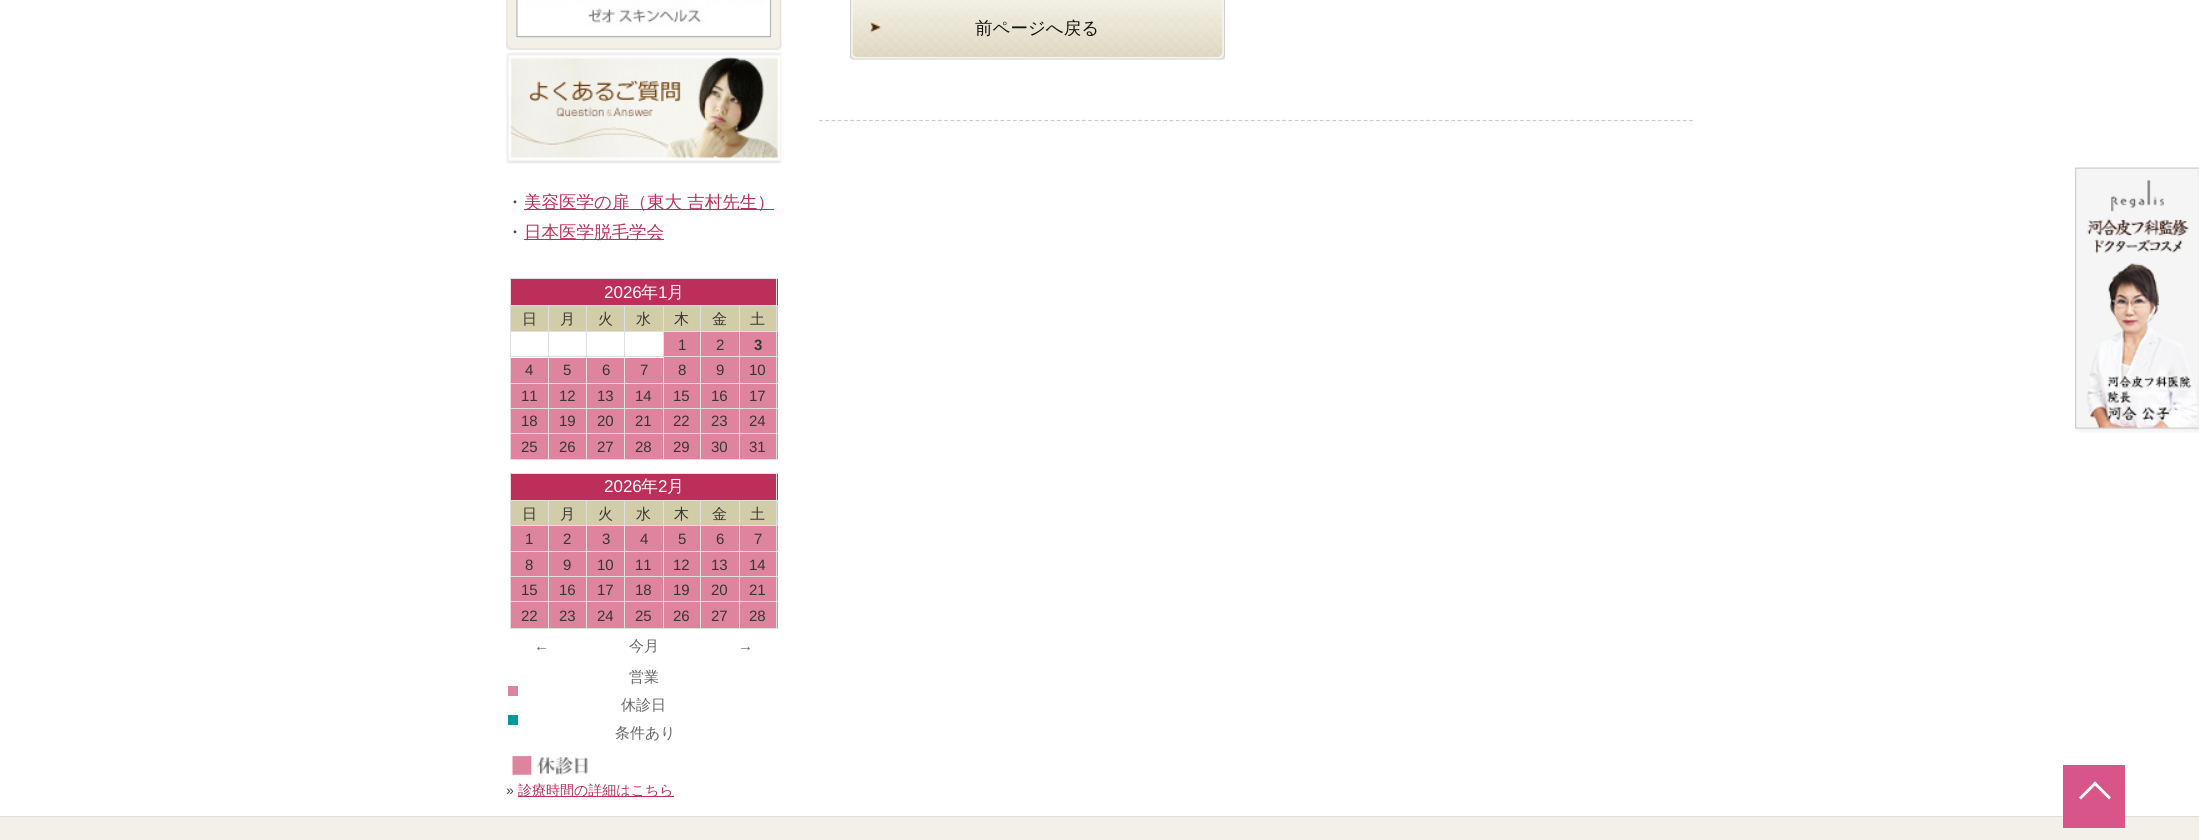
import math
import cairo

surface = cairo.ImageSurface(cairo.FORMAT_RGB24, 2199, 840)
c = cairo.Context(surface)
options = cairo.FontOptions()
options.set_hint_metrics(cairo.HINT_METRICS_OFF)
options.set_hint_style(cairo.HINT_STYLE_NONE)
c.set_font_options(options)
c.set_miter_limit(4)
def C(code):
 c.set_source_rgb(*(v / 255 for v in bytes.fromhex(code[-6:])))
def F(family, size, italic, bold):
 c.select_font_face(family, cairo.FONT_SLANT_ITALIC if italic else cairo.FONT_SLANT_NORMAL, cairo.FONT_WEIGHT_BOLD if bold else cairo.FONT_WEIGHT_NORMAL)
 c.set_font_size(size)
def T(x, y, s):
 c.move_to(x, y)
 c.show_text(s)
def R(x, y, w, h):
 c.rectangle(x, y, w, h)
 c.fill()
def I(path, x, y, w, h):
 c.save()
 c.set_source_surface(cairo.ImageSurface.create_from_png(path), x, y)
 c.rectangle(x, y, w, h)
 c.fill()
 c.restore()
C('ffffff')
c.paint()
c.new_path()
c.move_to(819,120.5)
c.line_to(1694,120.5)
C('cccccc')
c.set_line_width(1.2)
c.set_dash([3.75,2.51])
c.stroke()
I('1.png',850,0,375,60)
F('WenQuanYi Zen Hei Medium',17.5,0,0)
C('131313')
T(975,34,'前ページへ戻る')
I('2.png',506,0,276,50)
I('3.png',506,42,276,8)
I('4.png',516,0,256,38)
I('5.png',506,52,276,112)
C('444444')
T(506,208,'・')
C('bc2f5a')
R(524,209,250,1)
T(524,208,'美容医学の扉（東大 吉村先生）')
C('444444')
T(506,238,'・')
C('bc2f5a')
R(524,239,140,1)
T(524,238,'日本医学脱毛学会')
R(511,279,267,26)
C('dfdfdf')
R(510,278,268,1)
R(739,305,39,1)
C('d2cca9')
R(740,306,38,25)
C('de849f')
R(740,332,38,51)
C('dfdfdf')
R(739,331,39,1)
R(739,356,39,1)
R(739,383,39,1)
C('de849f')
R(740,384,38,24)
C('dfdfdf')
R(739,408,39,1)
C('de849f')
R(740,409,38,24)
C('dfdfdf')
R(739,433,39,1)
C('de849f')
R(740,434,38,25)
C('dfdfdf')
R(776,433,1,27)
R(776,408,1,26)
R(776,383,1,26)
R(776,356,1,28)
R(776,331,1,27)
R(776,305,1,28)
R(776,278,1,28)
C('de849f')
R(701,332,38,51)
C('dfdfdf')
R(739,459,39,1)
R(739,433,1,27)
R(700,433,40,1)
R(739,408,1,26)
R(700,408,40,1)
R(739,383,1,26)
R(700,383,40,1)
R(739,356,1,28)
R(700,356,40,1)
R(739,331,1,27)
R(700,331,40,1)
R(739,305,1,28)
R(700,305,40,1)
C('de849f')
R(664,332,36,51)
C('dfdfdf')
R(700,459,40,1)
R(700,433,1,27)
R(663,433,38,1)
R(700,408,1,26)
R(663,408,38,1)
R(700,383,1,26)
R(663,383,38,1)
R(700,356,1,28)
R(663,356,38,1)
R(700,331,1,27)
R(663,331,38,1)
R(700,305,1,28)
R(663,305,38,1)
R(663,459,38,1)
R(663,433,1,27)
R(624,433,40,1)
R(663,408,1,26)
R(624,408,40,1)
R(663,383,1,26)
R(624,383,40,1)
R(663,356,1,28)
R(624,356,40,1)
R(663,331,1,27)
R(624,331,40,1)
R(663,305,1,28)
R(624,305,40,1)
R(624,459,40,1)
R(624,433,1,27)
R(586,433,39,1)
R(624,408,1,26)
R(586,408,39,1)
R(624,383,1,26)
R(586,383,39,1)
R(624,356,1,28)
R(586,356,39,1)
R(624,331,1,27)
R(586,331,39,1)
R(624,305,1,28)
R(586,305,39,1)
R(586,459,39,1)
R(586,433,1,27)
R(548,433,40,1)
R(586,408,1,26)
R(548,408,40,1)
R(586,383,1,26)
R(548,383,40,1)
R(586,356,1,28)
R(548,356,40,1)
R(586,331,1,27)
R(548,331,40,1)
R(586,305,1,28)
R(548,305,40,1)
R(548,459,40,1)
R(548,433,1,27)
R(510,433,39,1)
R(548,408,1,26)
R(510,408,39,1)
R(548,383,1,26)
R(510,383,39,1)
R(548,356,1,28)
R(510,356,39,1)
R(548,331,1,27)
R(510,331,39,1)
R(548,305,1,28)
R(510,305,39,1)
R(510,459,39,1)
R(510,433,1,27)
R(510,408,1,26)
R(510,383,1,26)
R(510,356,1,28)
R(510,331,1,27)
R(510,305,1,28)
R(510,278,1,28)
F('Liberation Sans',17,0,0)
C('ffffff')
T(604,298,'2026')
F('WenQuanYi Zen Hei Medium',17,0,0)
T(641,298,'年')
F('Liberation Sans',17,0,0)
T(658,298,'1')
F('WenQuanYi Zen Hei Medium',17,0,0)
T(667,298,'月')
C('d2cca9')
R(511,306,37,25)
F('WenQuanYi Zen Hei Medium',15,0,0)
C('363636')
T(522,324,'日')
C('d2cca9')
R(549,306,37,25)
C('363636')
T(560,324,'月')
C('d2cca9')
R(587,306,37,25)
C('363636')
T(598,324,'火')
C('d2cca9')
R(625,306,38,25)
C('363636')
T(636,324,'水')
C('d2cca9')
R(664,306,36,25)
C('363636')
T(674,324,'木')
C('d2cca9')
R(701,306,38,25)
C('363636')
T(712,324,'金')
T(750,324,'土')
F('Liberation Sans',15,0,0)
T(678,350,'1')
T(716,350,'2')
F('Liberation Sans',15,0,1)
T(754,350,'3')
C('de849f')
R(511,358,37,25)
F('Liberation Sans',15,0,0)
C('363636')
T(525,375,'4')
C('de849f')
R(549,358,37,25)
C('363636')
T(563,375,'5')
C('de849f')
R(587,358,37,25)
C('363636')
T(602,375,'6')
C('de849f')
R(625,358,38,25)
C('363636')
T(640,375,'7')
T(678,375,'8')
T(716,375,'9')
T(749,375,'10')
C('de849f')
R(511,384,37,24)
C('363636')
T(521,401,'11')
C('de849f')
R(549,384,37,24)
C('363636')
T(559,401,'12')
C('de849f')
R(587,384,37,24)
C('363636')
T(597,401,'13')
C('de849f')
R(625,384,38,24)
C('363636')
T(635,401,'14')
C('de849f')
R(664,384,36,24)
C('363636')
T(673,401,'15')
C('de849f')
R(701,384,38,24)
C('363636')
T(711,401,'16')
T(749,401,'17')
C('de849f')
R(511,409,37,24)
C('363636')
T(521,426,'18')
C('de849f')
R(549,409,37,24)
C('363636')
T(559,426,'19')
C('de849f')
R(587,409,37,24)
C('363636')
T(597,426,'20')
C('de849f')
R(625,409,38,24)
C('363636')
T(635,426,'21')
C('de849f')
R(664,409,36,24)
C('363636')
T(673,426,'22')
C('de849f')
R(701,409,38,24)
C('363636')
T(711,426,'23')
T(749,426,'24')
C('de849f')
R(511,434,37,25)
C('363636')
T(521,452,'25')
C('de849f')
R(549,434,37,25)
C('363636')
T(559,452,'26')
C('de849f')
R(587,434,37,25)
C('363636')
T(597,452,'27')
C('de849f')
R(625,434,38,25)
C('363636')
T(635,452,'28')
C('de849f')
R(664,434,36,25)
C('363636')
T(673,452,'29')
C('de849f')
R(701,434,38,25)
C('363636')
T(711,452,'30')
T(749,452,'31')
C('bc2f5a')
R(511,474,267,26)
C('dfdfdf')
R(510,473,268,1)
R(739,500,39,1)
C('d2cca9')
R(740,501,38,24)
C('dfdfdf')
R(739,525,39,1)
C('de849f')
R(740,526,38,25)
R(740,552,38,76)
C('dfdfdf')
R(739,551,39,1)
R(739,576,39,1)
R(739,601,39,1)
R(776,601,1,28)
R(776,576,1,27)
R(776,551,1,27)
R(776,525,1,28)
R(776,500,1,26)
R(776,473,1,28)
C('de849f')
R(701,552,38,76)
C('dfdfdf')
R(739,628,39,1)
R(739,601,1,28)
R(700,601,40,1)
R(739,576,1,27)
R(700,576,40,1)
R(739,551,1,27)
R(700,551,40,1)
R(739,525,1,28)
R(700,525,40,1)
R(739,500,1,26)
R(700,500,40,1)
C('de849f')
R(664,552,36,76)
C('dfdfdf')
R(700,628,40,1)
R(700,601,1,28)
R(663,601,38,1)
R(700,576,1,27)
R(663,576,38,1)
R(700,551,1,27)
R(663,551,38,1)
R(700,525,1,28)
R(663,525,38,1)
R(700,500,1,26)
R(663,500,38,1)
C('de849f')
R(625,552,38,76)
C('dfdfdf')
R(663,628,38,1)
R(663,601,1,28)
R(624,601,40,1)
R(663,576,1,27)
R(624,576,40,1)
R(663,551,1,27)
R(624,551,40,1)
R(663,525,1,28)
R(624,525,40,1)
R(663,500,1,26)
R(624,500,40,1)
C('de849f')
R(587,552,37,76)
C('dfdfdf')
R(624,628,40,1)
R(624,601,1,28)
R(586,601,39,1)
R(624,576,1,27)
R(586,576,39,1)
R(624,551,1,27)
R(586,551,39,1)
R(624,525,1,28)
R(586,525,39,1)
R(624,500,1,26)
R(586,500,39,1)
C('de849f')
R(549,552,37,76)
C('dfdfdf')
R(586,628,39,1)
R(586,601,1,28)
R(548,601,40,1)
R(586,576,1,27)
R(548,576,40,1)
R(586,551,1,27)
R(548,551,40,1)
R(586,525,1,28)
R(548,525,40,1)
R(586,500,1,26)
R(548,500,40,1)
C('de849f')
R(511,552,37,76)
C('dfdfdf')
R(548,628,40,1)
R(548,601,1,28)
R(510,601,39,1)
R(548,576,1,27)
R(510,576,39,1)
R(548,551,1,27)
R(510,551,39,1)
R(548,525,1,28)
R(510,525,39,1)
R(548,500,1,26)
R(510,500,39,1)
R(510,628,39,1)
R(510,601,1,28)
R(510,576,1,27)
R(510,551,1,27)
R(510,525,1,28)
R(510,500,1,26)
R(510,473,1,28)
F('Liberation Sans',17,0,0)
C('ffffff')
T(604,492,'2026')
F('WenQuanYi Zen Hei Medium',17,0,0)
T(641,492,'年')
F('Liberation Sans',17,0,0)
T(658,492,'2')
F('WenQuanYi Zen Hei Medium',17,0,0)
T(667,492,'月')
C('d2cca9')
R(511,501,37,24)
F('WenQuanYi Zen Hei Medium',15,0,0)
C('363636')
T(522,519,'日')
C('d2cca9')
R(549,501,37,24)
C('363636')
T(560,519,'月')
C('d2cca9')
R(587,501,37,24)
C('363636')
T(598,519,'火')
C('d2cca9')
R(625,501,38,24)
C('363636')
T(636,519,'水')
C('d2cca9')
R(664,501,36,24)
C('363636')
T(674,519,'木')
C('d2cca9')
R(701,501,38,24)
C('363636')
T(712,519,'金')
T(750,519,'土')
C('de849f')
R(511,526,37,25)
F('Liberation Sans',15,0,0)
C('363636')
T(525,544,'1')
C('de849f')
R(549,526,37,25)
C('363636')
T(563,544,'2')
C('de849f')
R(587,526,37,25)
C('363636')
T(602,544,'3')
C('de849f')
R(625,526,38,25)
C('363636')
T(640,544,'4')
C('de849f')
R(664,526,36,25)
C('363636')
T(678,544,'5')
C('de849f')
R(701,526,38,25)
C('363636')
T(716,544,'6')
T(754,544,'7')
T(525,570,'8')
T(563,570,'9')
T(597,570,'10')
T(635,570,'11')
T(673,570,'12')
T(711,570,'13')
T(749,570,'14')
T(521,595,'15')
T(559,595,'16')
T(597,595,'17')
T(635,595,'18')
T(673,595,'19')
T(711,595,'20')
T(749,595,'21')
T(521,621,'22')
T(559,621,'23')
T(597,621,'24')
T(635,621,'25')
T(673,621,'26')
T(711,621,'27')
T(749,621,'28')
C('666666')
T(534,651,'←')
F('WenQuanYi Zen Hei Medium',15,0,0)
T(629,651,'今月')
F('Liberation Sans',15,0,0)
T(738,651,'→')
F('WenQuanYi Zen Hei Medium',15,0,0)
T(629,682,'営業')
C('de849f')
R(508,686,10,10)
C('666666')
T(621,710,'休診日')
C('009999')
R(508,715,10,10)
C('666666')
T(615,738,'条件あり')
I('6.png',512,755,76,20)
F('Liberation Sans',14,0,0)
C('444444')
T(506,795,'»')
C('bc2f5a')
R(518,796,156,1)
F('WenQuanYi Zen Hei Medium',14,0,0)
T(518,795,'診療時間の詳細はこちら')
C('f3f0e7')
R(0,817,2199,23)
C('e1ded6')
R(0,816,2199,1)
I('7.png',2075,167,124,266)
C('d85589')
R(2063,765,62,63)
C('ffffff')
c.new_path()
c.move_to(2079,797.5)
c.line_to(2095,781.5)
c.line_to(2097,783.5)
c.line_to(2081,799.5)
c.close_path()
c.fill()
c.new_path()
c.move_to(2093,783.5)
c.line_to(2095,781.5)
c.line_to(2111,797.5)
c.line_to(2109,799.5)
c.close_path()
c.fill()
surface.write_to_png('o.png')
